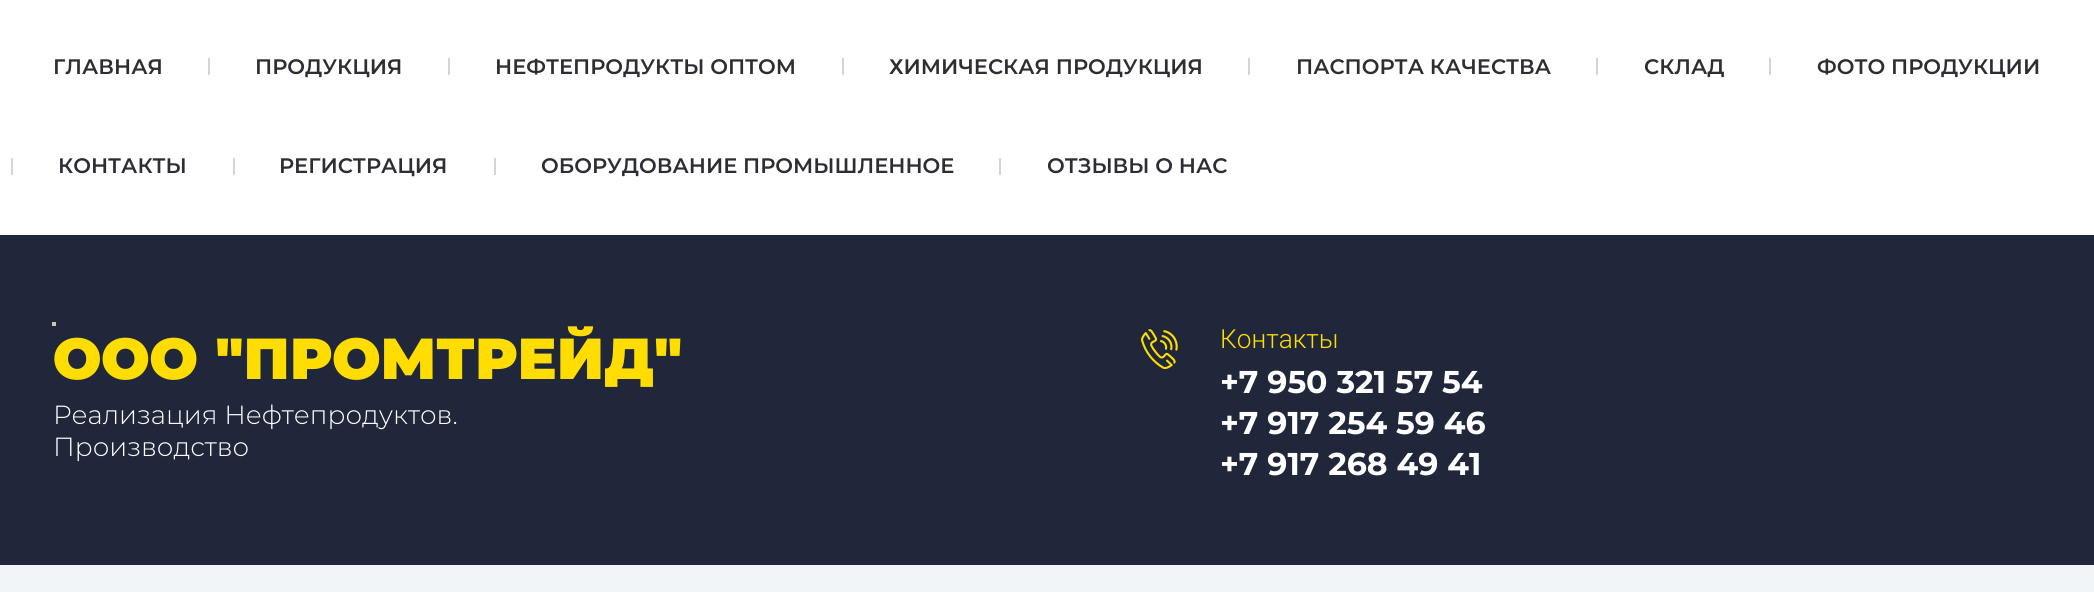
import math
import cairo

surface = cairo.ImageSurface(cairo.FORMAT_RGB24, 2094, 592)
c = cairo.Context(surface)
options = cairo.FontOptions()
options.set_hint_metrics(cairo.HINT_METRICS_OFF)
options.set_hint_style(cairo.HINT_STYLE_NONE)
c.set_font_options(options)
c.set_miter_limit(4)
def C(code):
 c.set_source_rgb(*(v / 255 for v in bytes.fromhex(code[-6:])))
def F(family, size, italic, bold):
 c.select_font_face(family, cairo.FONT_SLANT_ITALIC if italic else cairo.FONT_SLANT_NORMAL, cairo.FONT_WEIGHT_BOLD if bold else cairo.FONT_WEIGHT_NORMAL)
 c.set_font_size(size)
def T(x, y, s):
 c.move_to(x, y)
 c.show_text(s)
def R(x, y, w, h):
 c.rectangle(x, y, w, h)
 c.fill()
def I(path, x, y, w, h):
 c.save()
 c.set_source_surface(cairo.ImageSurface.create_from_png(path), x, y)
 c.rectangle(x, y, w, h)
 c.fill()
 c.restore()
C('f1f5f8')
c.paint()
C('ffffff')
R(0,0,2094,235)
F('Montserrat SemiBold',21,0,0)
C('2f2c33')
T(53,74,'ГЛАВНАЯ')
C('d5d5d6')
R(208,58,2,17)
C('2f2c33')
T(255,74,'ПРОДУКЦИЯ')
C('d5d5d6')
R(448,58,2,17)
C('2f2c33')
T(495,74,'НЕФТЕПРОДУКТЫ ОПТОМ')
C('d5d5d6')
R(842,58,2,17)
C('2f2c33')
T(889,74,'ХИМИЧЕСКАЯ ПРОДУКЦИЯ')
C('d5d5d6')
R(1248,58,2,17)
C('2f2c33')
T(1296,74,'ПАСПОРТА КАЧЕСТВА')
C('d5d5d6')
R(1596,58,2,17)
C('2f2c33')
T(1644,74,'СКЛАД')
C('d5d5d6')
R(1769,58,2,17)
C('2f2c33')
T(1817,74,'ФОТО ПРОДУКЦИИ')
C('d5d5d6')
R(11,158,2,17)
C('2f2c33')
T(58,173,'КОНТАКТЫ')
C('d5d5d6')
R(233,158,2,17)
C('2f2c33')
T(279,173,'РЕГИСТРАЦИЯ')
C('d5d5d6')
R(494,158,2,17)
C('2f2c33')
T(541,173,'ОБОРУДОВАНИЕ ПРОМЫШЛЕННОЕ')
C('d5d5d6')
R(999,158,2,17)
C('2f2c33')
T(1047,173,'ОТЗЫВЫ О НАС')
C('20273a')
R(0,235,2094,330)
C('cec7b7')
R(52,322,4,4)
F('Montserrat Black',57.75,0,0)
C('ffdd00')
T(53,379,'ООО "ПРОМТРЕЙД"')
F('Montserrat Light',26.25,0,0)
C('ffffff')
T(53,424,'Реализация Нефтепродуктов.')
T(53,456,'Производство')
I('1.png',1141,329,37,40)
F('Roboto Light',26.25,0,0)
C('ffdd00')
T(1220,348,'Контакты')
F('Montserrat',31.5,0,1)
C('ffffff')
T(1220,393,'+7 950 321 57 54')
T(1220,434,'+7 917 254 59 46')
T(1220,475,'+7 917 268 49 41')
surface.write_to_png('o.png')
